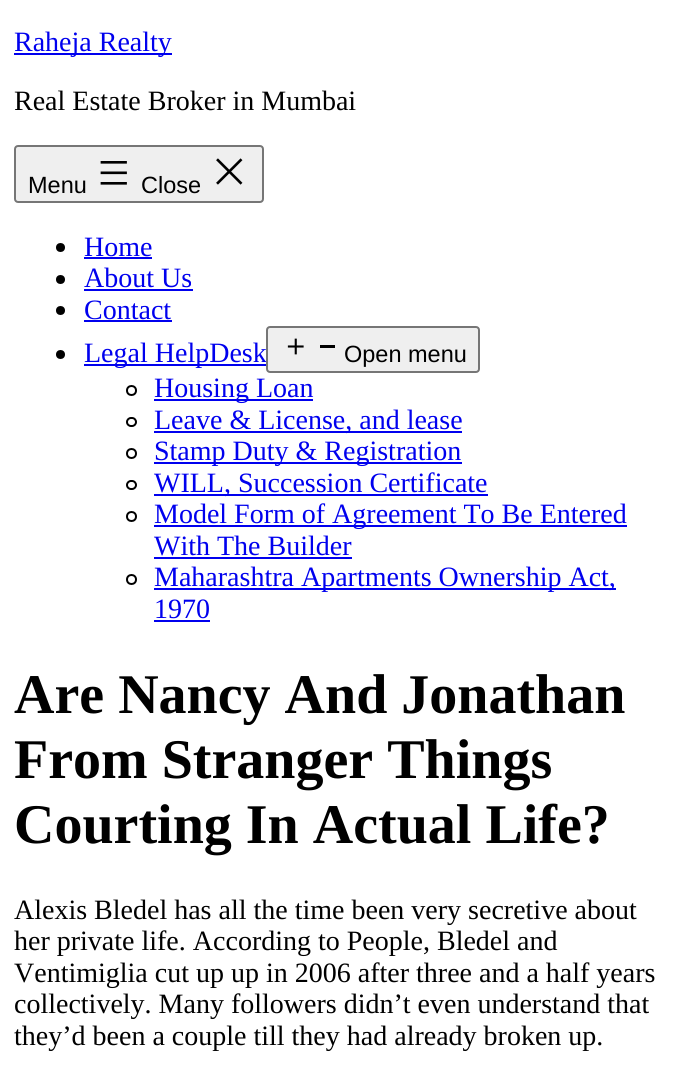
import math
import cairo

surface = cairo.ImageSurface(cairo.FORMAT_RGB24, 683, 1065)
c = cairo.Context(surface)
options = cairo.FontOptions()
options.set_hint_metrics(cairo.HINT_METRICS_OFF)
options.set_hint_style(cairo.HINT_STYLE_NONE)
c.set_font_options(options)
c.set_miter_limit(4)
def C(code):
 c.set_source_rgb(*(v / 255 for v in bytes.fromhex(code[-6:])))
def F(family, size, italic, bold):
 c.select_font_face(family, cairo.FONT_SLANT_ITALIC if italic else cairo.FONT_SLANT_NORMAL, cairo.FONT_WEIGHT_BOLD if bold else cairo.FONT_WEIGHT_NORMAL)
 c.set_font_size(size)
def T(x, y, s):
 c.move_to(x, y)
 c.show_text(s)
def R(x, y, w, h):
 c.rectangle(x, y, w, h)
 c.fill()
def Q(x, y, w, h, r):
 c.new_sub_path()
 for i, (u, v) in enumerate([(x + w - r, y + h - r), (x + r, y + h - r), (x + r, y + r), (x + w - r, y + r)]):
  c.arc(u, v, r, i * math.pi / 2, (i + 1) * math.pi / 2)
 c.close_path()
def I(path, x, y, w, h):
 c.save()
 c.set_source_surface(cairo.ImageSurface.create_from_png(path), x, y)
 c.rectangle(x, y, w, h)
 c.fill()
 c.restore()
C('ffffff')
c.paint()
C('0000ee')
R(14,53,158,2)
F('Liberation Serif',28,0,0)
T(14,51,'Raheja Realty')
C('000000')
T(14,110,'Real Estate Broker in Mumbai')
C('efefef')
Q(15,146,248,56,3)
c.fill_preserve()
C('767676')
c.stroke()
F('Liberation Sans',23.5,0,0)
C('000000')
T(28,193,'Menu')
I('1.png',100,161,27,24)
T(141,193,'Close')
I('2.png',216,158,27,27)
c.arc(60.5,247.5,4.5,0,2 * math.pi)
c.fill()
F('Liberation Serif',28,0,0)
C('0000ee')
T(84,256,'Home')
R(84,257,68,2)
C('000000')
c.new_path()
c.arc(60.5,279.5,4.5,0,2 * math.pi)
c.fill()
C('0000ee')
T(84,287,'About Us')
R(84,289,109,2)
C('000000')
c.new_path()
c.arc(60.5,310.5,4.5,0,2 * math.pi)
c.fill()
C('0000ee')
T(84,319,'Contact')
R(84,320,88,2)
C('000000')
c.new_path()
c.arc(60.5,354.5,4.5,0,2 * math.pi)
c.fill()
C('0000ee')
R(84,364,182,2)
T(84,362,'Legal HelpDesk')
C('efefef')
Q(267,327,212,45,3)
c.fill_preserve()
C('767676')
c.stroke()
I('3.png',287,338,17,17)
C('000000')
R(320,345,15,3)
F('Liberation Sans',23.5,0,0)
T(344,362,'Open menu')
c.new_path()
c.arc(131.5,390.5,4.5,0,2 * math.pi)
c.stroke()
C('0000ee')
R(154,399,159,2)
F('Liberation Serif',28,0,0)
T(154,397,'Housing Loan')
Q(127,418,9,8,4)
C('000000')
c.stroke()
C('0000ee')
R(154,431,308,2)
T(154,429,'Leave & License, and lease')
c.new_path()
c.arc(131.5,453.5,4.5,0,2 * math.pi)
C('000000')
c.stroke()
C('0000ee')
R(154,462,308,2)
T(154,460,'Stamp Duty & Registration')
Q(127,481,9,8,4)
C('000000')
c.stroke()
C('0000ee')
R(154,494,334,2)
T(154,492,'WILL, Succession Certificate')
c.new_path()
c.arc(131.5,516.5,4.5,0,2 * math.pi)
C('000000')
c.stroke()
C('0000ee')
R(154,525,473,2)
T(154,523,'Model Form of Agreement To Be Entered')
T(154,555,'With The Builder')
R(154,557,198,2)
c.new_path()
c.arc(131.5,579.5,4.5,0,2 * math.pi)
C('000000')
c.stroke()
C('0000ee')
R(154,588,462,2)
T(154,586,'Maharashtra Apartments Ownership Act,')
T(154,618,'1970')
R(154,620,56,2)
F('Liberation Serif',56,0,1)
C('000000')
T(14,713,'Are Nancy And Jonathan')
T(14,778,'From Stranger Things')
T(14,843,'Courting In Actual Life?')
F('Liberation Serif',28,0,0)
T(14,919,'Alexis Bledel has all the time been very secretive about')
T(14,950,'her private life. According to People, Bledel and')
T(14,982,'Ventimiglia cut up up in 2006 after three and a half years')
T(14,1013,'collectively. Many followers didn’t even understand that')
T(14,1045,'they’d been a couple till they had already broken up.')
surface.write_to_png('o.png')
